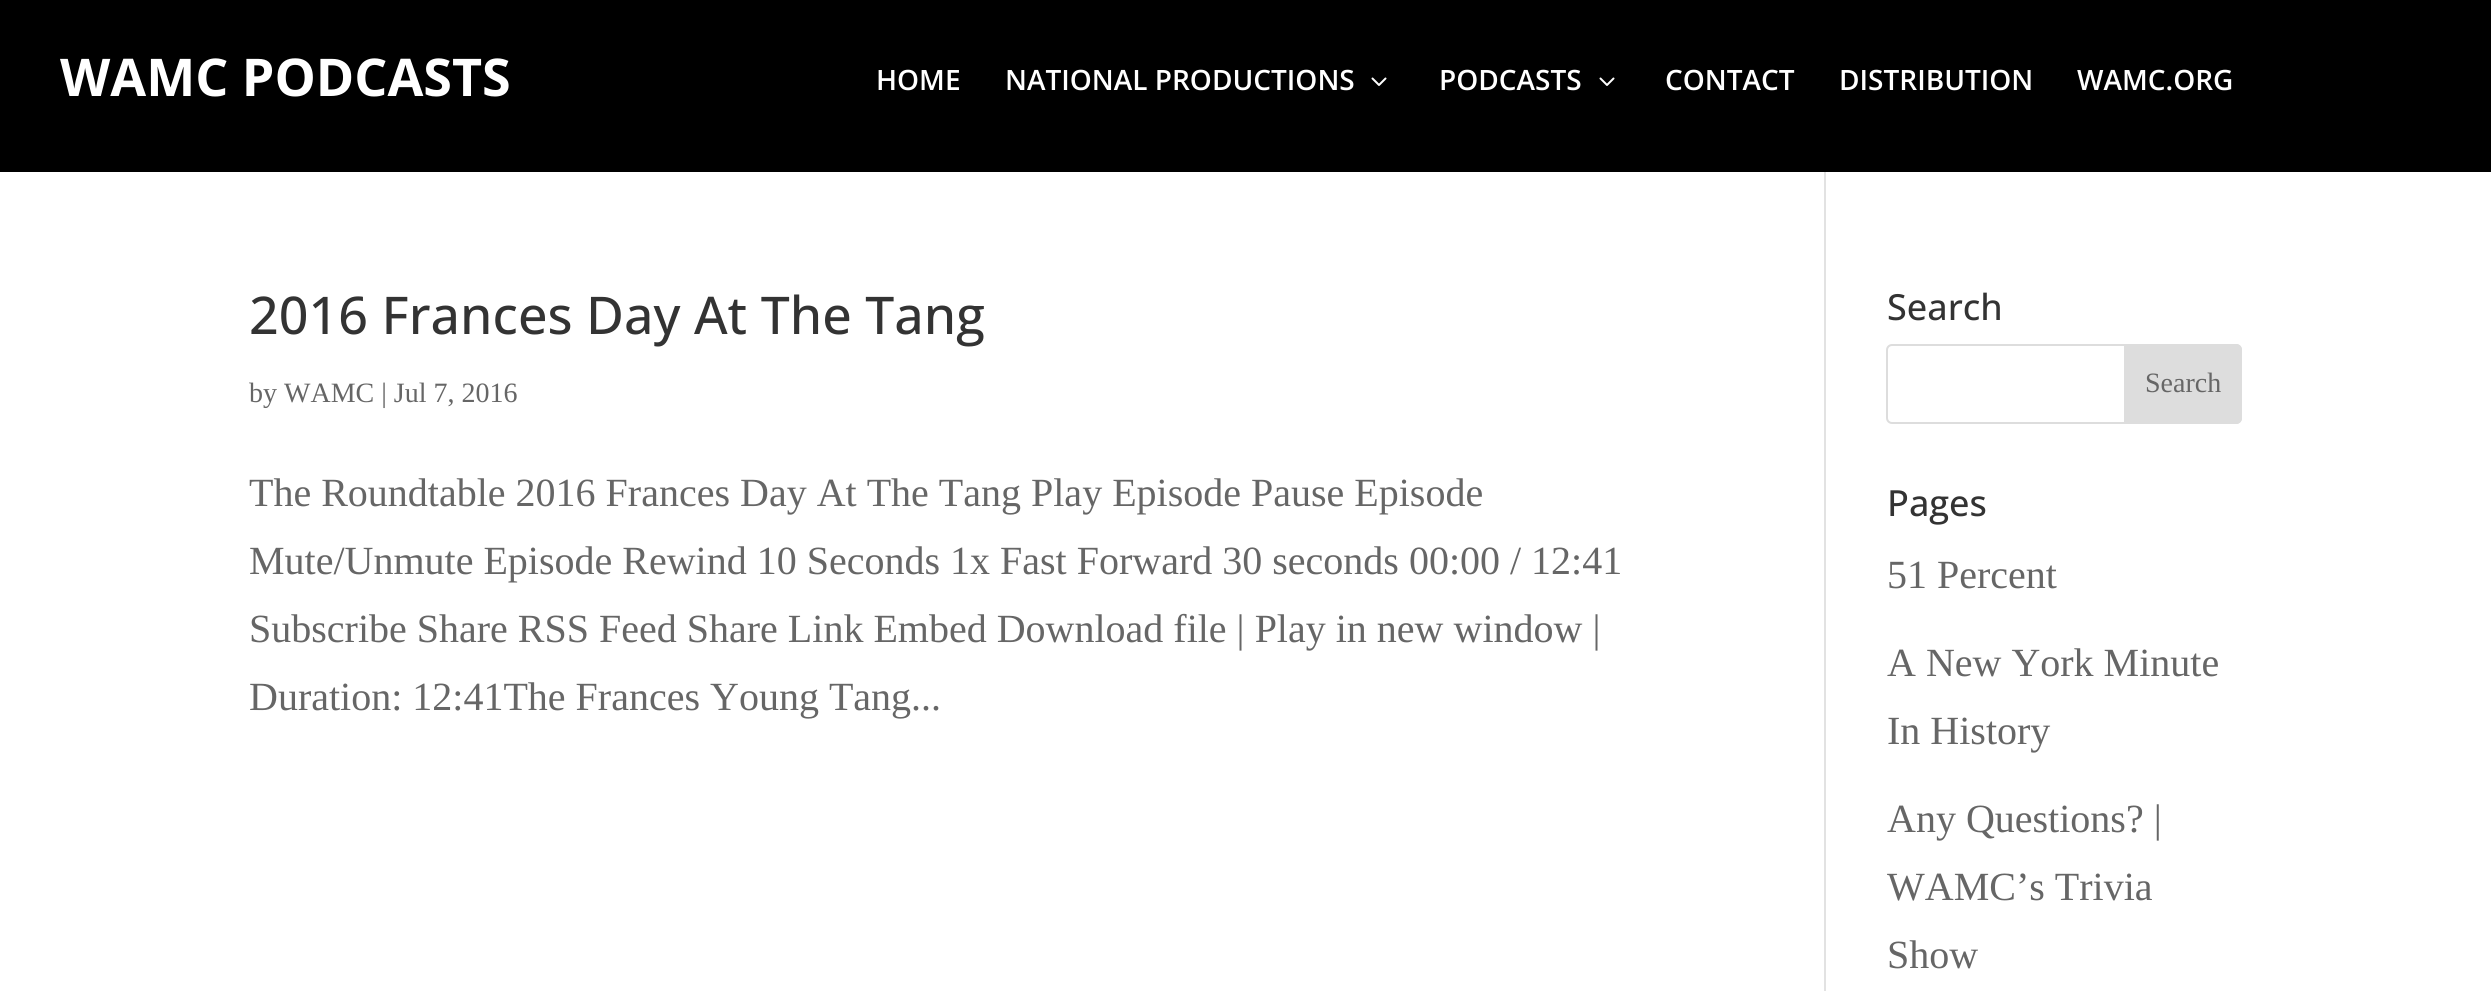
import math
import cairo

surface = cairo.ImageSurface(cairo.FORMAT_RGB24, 2491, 991)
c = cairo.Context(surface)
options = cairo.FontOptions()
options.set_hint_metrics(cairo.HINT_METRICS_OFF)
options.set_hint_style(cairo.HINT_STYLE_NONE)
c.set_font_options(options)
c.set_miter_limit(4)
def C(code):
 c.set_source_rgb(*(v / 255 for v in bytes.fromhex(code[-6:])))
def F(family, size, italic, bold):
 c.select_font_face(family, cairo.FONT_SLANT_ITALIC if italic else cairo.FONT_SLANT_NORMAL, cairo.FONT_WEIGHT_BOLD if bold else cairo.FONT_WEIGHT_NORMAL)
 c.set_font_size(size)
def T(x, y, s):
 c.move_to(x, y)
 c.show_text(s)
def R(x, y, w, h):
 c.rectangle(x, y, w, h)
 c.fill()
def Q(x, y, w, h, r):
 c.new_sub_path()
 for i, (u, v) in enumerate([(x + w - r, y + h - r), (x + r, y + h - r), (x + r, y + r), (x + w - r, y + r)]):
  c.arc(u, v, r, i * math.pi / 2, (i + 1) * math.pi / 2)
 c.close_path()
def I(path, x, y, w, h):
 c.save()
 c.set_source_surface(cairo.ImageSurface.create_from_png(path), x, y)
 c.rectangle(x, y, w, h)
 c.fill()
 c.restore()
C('ffffff')
c.paint()
C('000000')
R(0,0,2491,172)
F('Open Sans',52,0,1)
C('ffffff')
T(60,96,'WAMC PODCASTS')
F('Open Sans SemiBold',28,0,0)
T(876,90,'HOME')
T(1005,90,'NATIONAL PRODUCTIONS')
I('1.png',1371,77,16,9)
T(1439,90,'PODCASTS')
I('1.png',1599,77,16,9)
T(1665,90,'CONTACT')
T(1839,90,'DISTRIBUTION')
T(2077,90,'WAMC.ORG')
C('e2e2e2')
R(1824,172,2,819)
F('Open Sans Medium',52,0,0)
C('333333')
T(249,334,'2016 Frances Day At The Tang')
F('Liberation Serif',28,0,0)
C('666666')
T(249,402,'by WAMC | Jul 7, 2016')
F('Liberation Serif',40,0,0)
T(249,506,'The Roundtable 2016 Frances Day At The Tang Play Episode Pause Episode')
T(249,574,'Mute/Unmute Episode Rewind 10 Seconds 1x Fast Forward 30 seconds 00:00 / 12:41')
T(249,642,'Subscribe Share RSS Feed Share Link Embed Download file | Play in new window |')
T(249,710,'Duration: 12:41The Frances Young Tang...')
F('Open Sans Medium',36,0,0)
C('333333')
T(1887,320,'Search')
Q(1887,345,354,78,5)
C('dddddd')
c.stroke()
c.new_path()
c.move_to(2125,345)
c.line_to(2236,345)
c.curve_to(2239,345,2241,347,2241,350)
c.line_to(2241,418)
c.curve_to(2241,421,2239,423,2236,423)
c.line_to(2125,423)
c.close_path()
c.fill_preserve()
c.stroke()
F('Liberation Serif',28,0,0)
C('666666')
T(2145,392,'Search')
F('Open Sans Medium',36,0,0)
C('333333')
T(1887,516,'Pages')
F('Liberation Serif',40,0,0)
C('666666')
T(1887,588,'51 Percent')
T(1887,676,'A New York Minute')
T(1887,744,'In History')
T(1887,832,'Any Questions? |')
T(1887,900,'WAMC’s Trivia')
T(1887,968,'Show')
surface.write_to_png('o.png')
